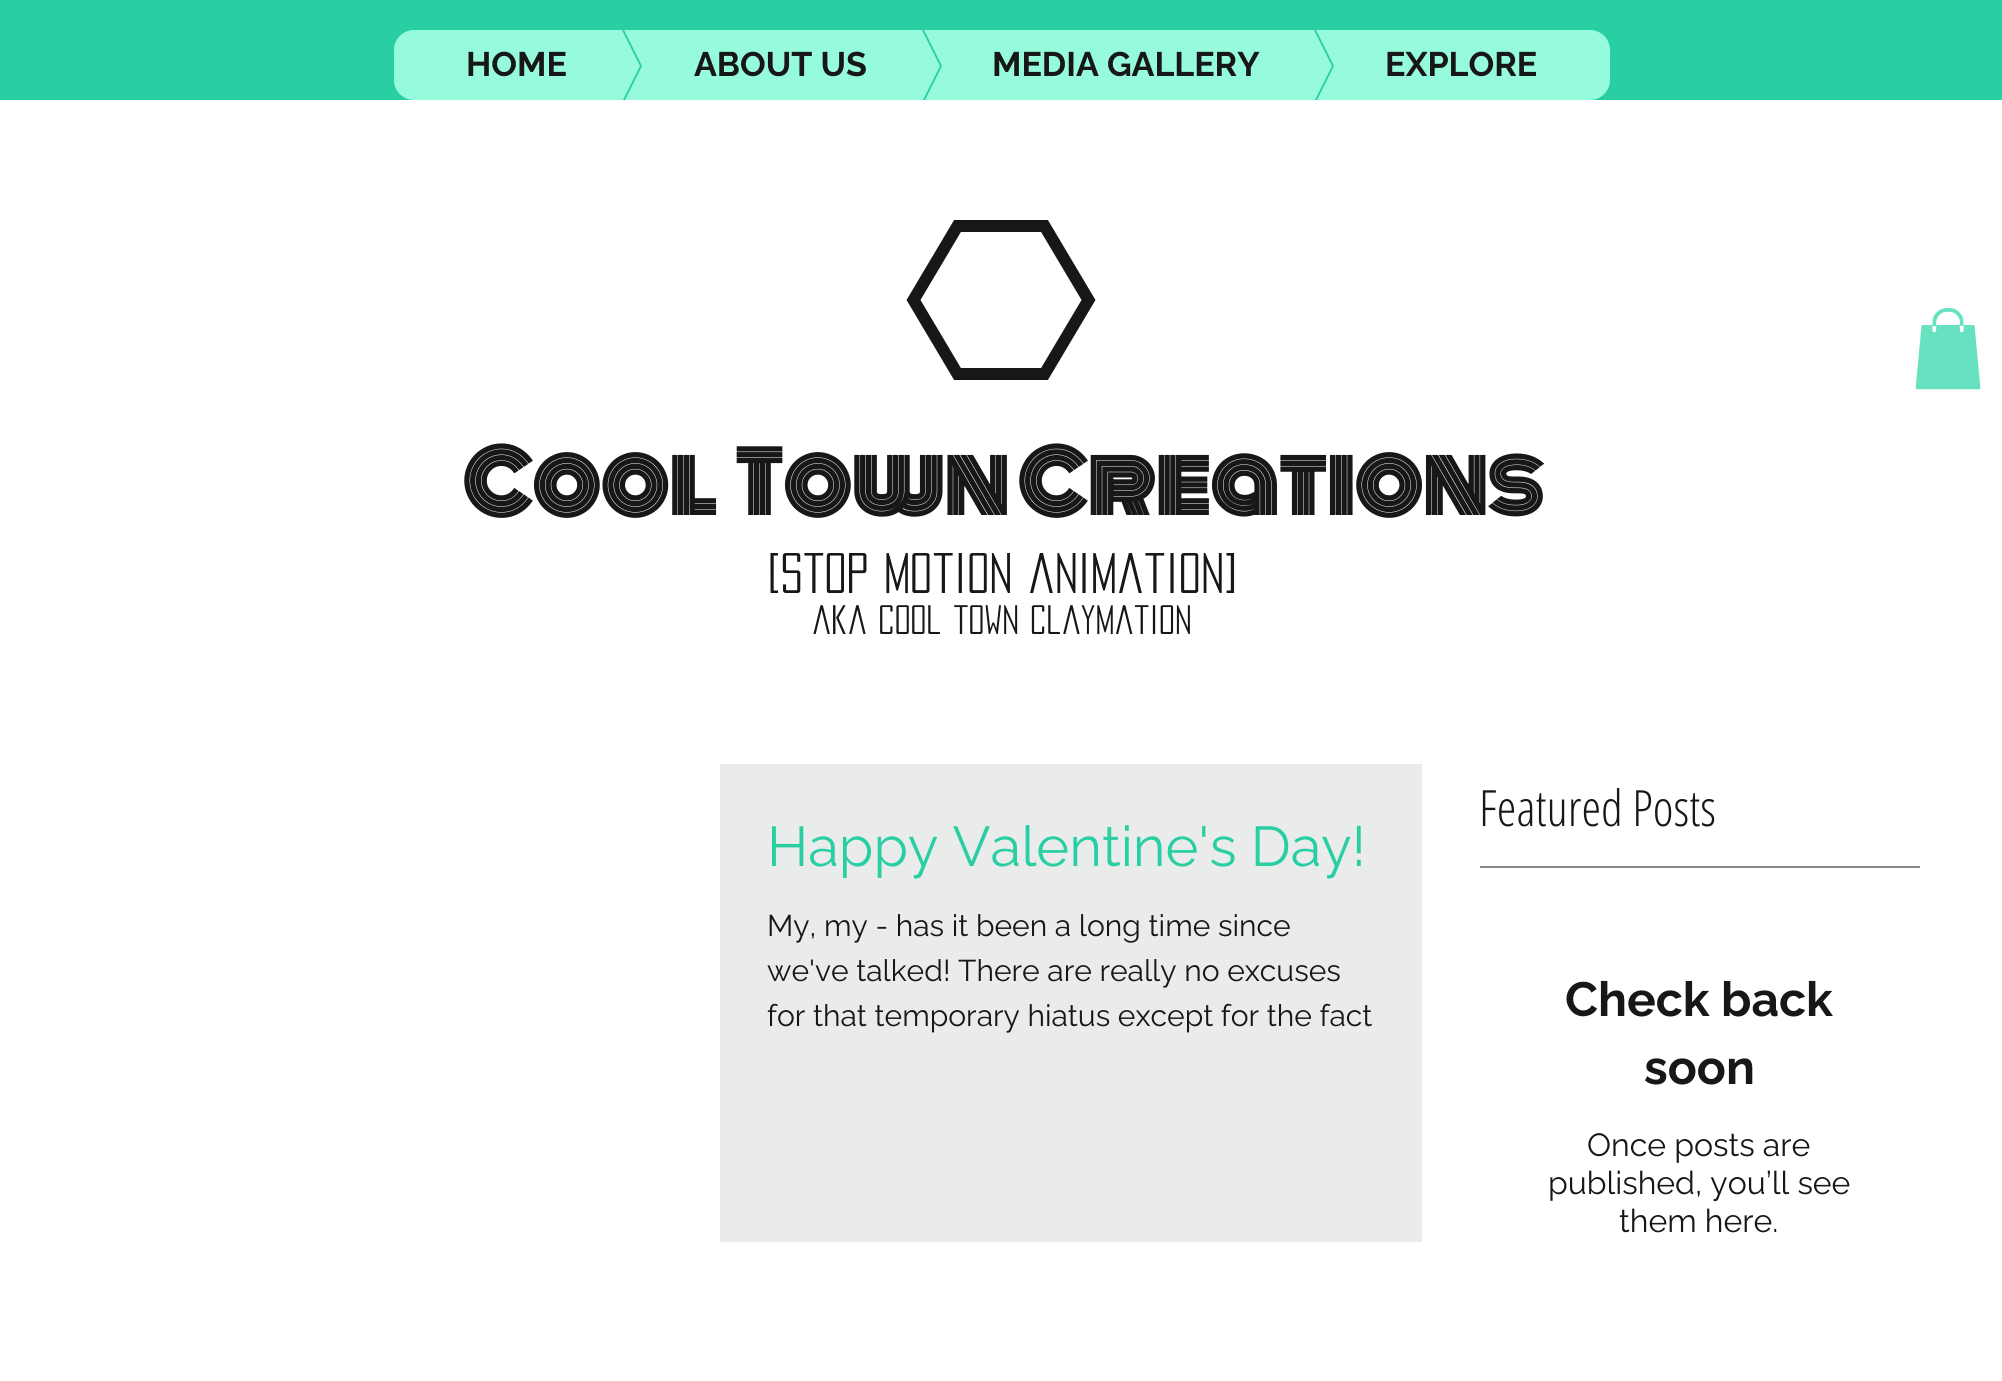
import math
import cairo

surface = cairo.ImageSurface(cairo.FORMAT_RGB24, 2002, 1381)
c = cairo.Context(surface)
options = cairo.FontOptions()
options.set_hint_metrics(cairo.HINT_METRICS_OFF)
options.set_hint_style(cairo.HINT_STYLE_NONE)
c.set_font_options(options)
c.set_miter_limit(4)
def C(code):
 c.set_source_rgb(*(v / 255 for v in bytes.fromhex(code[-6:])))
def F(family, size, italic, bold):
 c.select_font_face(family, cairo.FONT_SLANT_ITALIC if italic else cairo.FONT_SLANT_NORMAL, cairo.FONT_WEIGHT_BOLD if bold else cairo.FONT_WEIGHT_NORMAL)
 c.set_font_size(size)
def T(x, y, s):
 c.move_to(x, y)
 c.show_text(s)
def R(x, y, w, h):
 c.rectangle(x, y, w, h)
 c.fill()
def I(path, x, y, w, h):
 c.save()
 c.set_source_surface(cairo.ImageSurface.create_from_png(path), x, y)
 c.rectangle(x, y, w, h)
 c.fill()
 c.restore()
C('ffffff')
c.paint()
C('29cfa3')
R(0,0,2002,100)
C('95fbdc')
c.new_path()
c.move_to(414,30)
c.line_to(500,30)
c.line_to(500,100)
c.line_to(414,100)
c.curve_to(403,100,394,91,394,80)
c.line_to(394,50)
c.curve_to(394,39,403,30,414,30)
c.close_path()
c.fill()
c.save()
c.rectangle(500,30,140,70)
c.clip()
c.new_path()
c.move_to(640,66)
c.line_to(500,66)
c.line_to(500,-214)
c.close_path()
c.fill()
c.new_path()
c.move_to(500,66)
c.line_to(640,66)
c.line_to(500,346)
c.close_path()
c.fill()
c.restore()
F('Raleway',34,0,1)
C('181717')
T(466,76,'HOME')
c.save()
c.rectangle(502,30,140,70)
c.clip()
C('95fbdc')
c.new_path()
c.move_to(502,-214)
c.line_to(642,-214)
c.line_to(642,66)
c.close_path()
c.fill()
c.new_path()
c.move_to(642,346)
c.line_to(502,346)
c.line_to(642,66)
c.close_path()
c.fill()
c.restore()
C('95fbdc')
R(642,30,158,70)
c.save()
c.rectangle(800,30,140,70)
c.clip()
c.new_path()
c.move_to(940,66)
c.line_to(800,66)
c.line_to(800,-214)
c.close_path()
c.fill()
c.new_path()
c.move_to(800,66)
c.line_to(940,66)
c.line_to(800,346)
c.close_path()
c.fill()
c.restore()
C('181717')
T(694,76,'ABOUT US')
c.save()
c.rectangle(802,30,140,70)
c.clip()
C('95fbdc')
c.new_path()
c.move_to(802,-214)
c.line_to(942,-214)
c.line_to(942,66)
c.close_path()
c.fill()
c.new_path()
c.move_to(942,346)
c.line_to(802,346)
c.line_to(942,66)
c.close_path()
c.fill()
c.restore()
C('95fbdc')
R(942,30,250,70)
c.save()
c.rectangle(1192,30,140,70)
c.clip()
c.new_path()
c.move_to(1332,66)
c.line_to(1192,66)
c.line_to(1192,-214)
c.close_path()
c.fill()
c.new_path()
c.move_to(1192,66)
c.line_to(1332,66)
c.line_to(1192,346)
c.close_path()
c.fill()
c.restore()
C('181717')
T(992,76,'MEDIA GALLERY')
c.save()
c.rectangle(1194,30,140,70)
c.clip()
C('95fbdc')
c.new_path()
c.move_to(1194,-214)
c.line_to(1334,-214)
c.line_to(1334,66)
c.close_path()
c.fill()
c.new_path()
c.move_to(1334,346)
c.line_to(1194,346)
c.line_to(1334,66)
c.close_path()
c.fill()
c.restore()
C('95fbdc')
R(1334,30,136,70)
c.new_path()
c.move_to(1470,30)
c.line_to(1590,30)
c.curve_to(1601,30,1610,39,1610,50)
c.line_to(1610,80)
c.curve_to(1610,91,1601,100,1590,100)
c.line_to(1470,100)
c.close_path()
c.fill()
C('181717')
T(1385,76,'EXPLORE')
c.new_path()
c.move_to(1044.5,226)
c.line_to(1088.5,300)
c.line_to(1044.5,374)
c.line_to(957.5,374)
c.line_to(913.5,300)
c.line_to(957.5,226)
c.close_path()
c.set_line_width(12)
c.stroke()
I('1.png',1915,308,66,82)
F('Monoton',82,0,1)
T(462,515,'Cool  Town Creations')
F('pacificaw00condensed',50,0,0)
T(768,593,'[stop motion animation]')
F('pacificaw00condensed',36,0,0)
T(812,634,'aka cool town claymation')
F('Open Sans Condensed Light',50,0,0)
T(1479,826,'Featured Posts')
C('eaeceb')
R(720,764,702,478)
F('Raleway',56,0,0)
C('29cfa3')
T(767,866,'Happy Valentine\'s Day!')
F('Raleway',30,0,0)
C('181717')
T(767,936,'My, my - has it been a long time since')
T(767,981,'we\'ve talked! There are really no excuses')
T(767,1026,'for that temporary hiatus except for the fact')
C('858887')
R(1480,866,440,2)
F('Raleway',48,0,1)
C('181717')
T(1565,1016,'Check back')
T(1644,1084,'soon')
F('Raleway',32,0,0)
T(1587,1156,'Once posts are')
T(1548,1194,'published, you’ll see')
T(1619,1232,'them here.')
surface.write_to_png('o.png')
